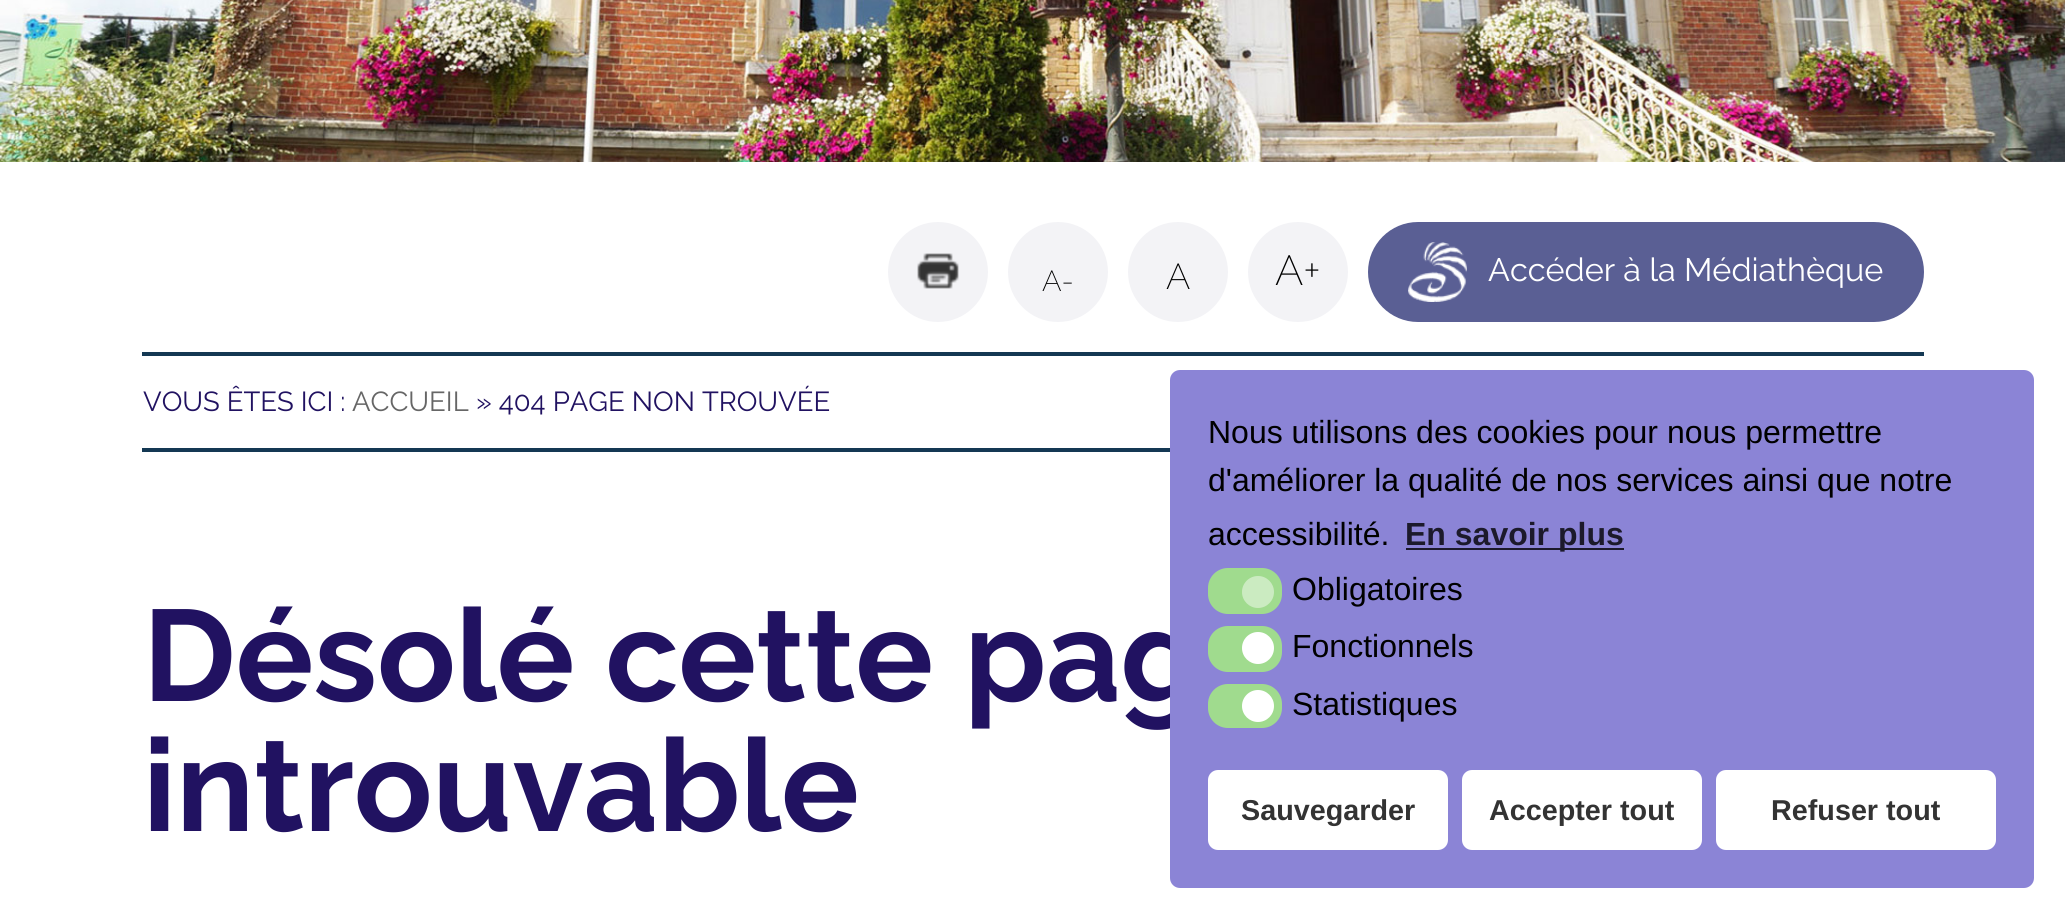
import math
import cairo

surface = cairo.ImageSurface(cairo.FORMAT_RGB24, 2065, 920)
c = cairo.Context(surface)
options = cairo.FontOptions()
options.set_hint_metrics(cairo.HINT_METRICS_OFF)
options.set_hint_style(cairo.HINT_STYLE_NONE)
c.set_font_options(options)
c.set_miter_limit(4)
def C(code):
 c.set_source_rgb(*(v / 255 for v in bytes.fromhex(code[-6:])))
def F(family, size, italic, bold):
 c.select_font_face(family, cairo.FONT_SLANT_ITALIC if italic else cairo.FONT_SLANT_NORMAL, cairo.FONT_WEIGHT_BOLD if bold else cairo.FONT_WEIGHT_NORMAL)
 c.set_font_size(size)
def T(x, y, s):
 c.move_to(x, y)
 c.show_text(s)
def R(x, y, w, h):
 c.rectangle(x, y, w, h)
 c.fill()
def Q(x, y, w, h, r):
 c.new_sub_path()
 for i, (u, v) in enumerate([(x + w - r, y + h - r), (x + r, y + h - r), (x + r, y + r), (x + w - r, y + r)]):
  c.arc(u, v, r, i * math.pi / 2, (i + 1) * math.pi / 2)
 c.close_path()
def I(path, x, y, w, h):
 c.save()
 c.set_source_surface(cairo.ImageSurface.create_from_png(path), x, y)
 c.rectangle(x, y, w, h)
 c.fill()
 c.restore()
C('ffffff')
c.paint()
I('1.png',0,0,2065,162)
C('f3f3f6')
c.arc(938,272,50,0,2 * math.pi)
c.fill()
I('2.png',917,253,42,36)
c.arc(1058,272,50,0,2 * math.pi)
c.fill()
F('Raleway ExtraLight',29,0,0)
C('000000')
T(1042,291,'A-')
C('f3f3f6')
c.new_path()
c.arc(1178,272,50,0,2 * math.pi)
c.fill()
F('Raleway ExtraLight',36,0,0)
C('000000')
T(1166,289,'A')
C('f3f3f6')
c.new_path()
c.arc(1298,272,50,0,2 * math.pi)
c.fill()
F('Raleway ExtraLight',42,0,0)
C('000000')
T(1275,285,'A+')
C('5a5f94')
Q(1368,222,556,100,50)
c.fill()
I('3.png',1408,242,59,60)
F('Raleway',32.4,0,0)
C('ffffff')
T(1488,281,'Accéder à la Médiathèque')
C('143853')
R(142,352,1782,4)
R(142,448,1028,4)
F('Raleway',27.5,0,0)
C('211261')
T(143,411,'VOUS ÊTES ICI :')
C('666666')
T(352,411,'ACCUEIL')
C('211261')
T(476,411,'» 404 PAGE NON TROUVÉE')
F('Raleway',129.5,0,1)
T(143,701,'Désolé cette pag')
T(143,831,'introuvable')
C('8b84d6')
Q(1170,370,864,518,10)
c.fill()
F('Liberation Sans',32,0,0)
C('000000')
T(1208,443,'Nous utilisons des cookies pour nous permettre')
T(1208,491,'d\'améliorer la qualité de nos services ainsi que notre')
T(1208,545,'accessibilité.')
C('1c1a2b')
R(1406,548,218,2)
F('Liberation Sans',32,0,1)
T(1405,545,'En savoir plus')
C('a0db8e')
Q(1208,568,74,46,20)
c.fill()
C('cbebc1')
c.arc(1258,592,16,0,2 * math.pi)
c.fill()
F('Liberation Sans',32,0,0)
C('000000')
T(1292,600,'Obligatoires')
C('a0db8e')
Q(1208,626,74,46,20)
c.fill()
C('ffffff')
c.arc(1258,648,16,0,2 * math.pi)
c.fill()
C('000000')
T(1292,657,'Fonctionnels')
C('a0db8e')
Q(1208,684,74,44,20)
c.fill()
C('ffffff')
c.arc(1258,706,16,0,2 * math.pi)
c.fill()
C('000000')
T(1292,715,'Statistiques')
C('ffffff')
Q(1208,770,240,80,10)
c.fill()
F('Liberation Sans',28.75,0,1)
C('333333')
T(1241,820,'Sauvegarder')
C('ffffff')
Q(1462,770,240,80,10)
c.fill()
C('333333')
T(1489,820,'Accepter tout')
C('ffffff')
Q(1716,770,280,80,10)
c.fill()
C('333333')
T(1771,820,'Refuser tout')
surface.write_to_png('o.png')
